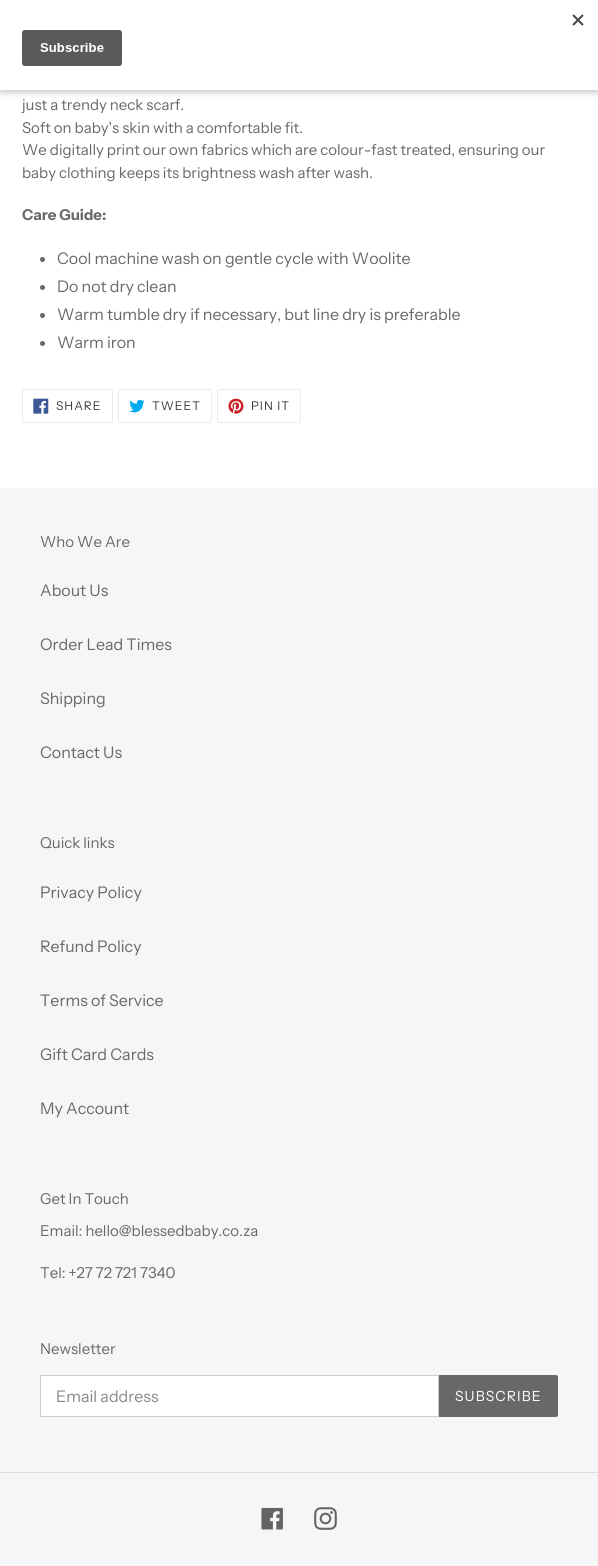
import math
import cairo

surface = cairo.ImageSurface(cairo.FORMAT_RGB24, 598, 1566)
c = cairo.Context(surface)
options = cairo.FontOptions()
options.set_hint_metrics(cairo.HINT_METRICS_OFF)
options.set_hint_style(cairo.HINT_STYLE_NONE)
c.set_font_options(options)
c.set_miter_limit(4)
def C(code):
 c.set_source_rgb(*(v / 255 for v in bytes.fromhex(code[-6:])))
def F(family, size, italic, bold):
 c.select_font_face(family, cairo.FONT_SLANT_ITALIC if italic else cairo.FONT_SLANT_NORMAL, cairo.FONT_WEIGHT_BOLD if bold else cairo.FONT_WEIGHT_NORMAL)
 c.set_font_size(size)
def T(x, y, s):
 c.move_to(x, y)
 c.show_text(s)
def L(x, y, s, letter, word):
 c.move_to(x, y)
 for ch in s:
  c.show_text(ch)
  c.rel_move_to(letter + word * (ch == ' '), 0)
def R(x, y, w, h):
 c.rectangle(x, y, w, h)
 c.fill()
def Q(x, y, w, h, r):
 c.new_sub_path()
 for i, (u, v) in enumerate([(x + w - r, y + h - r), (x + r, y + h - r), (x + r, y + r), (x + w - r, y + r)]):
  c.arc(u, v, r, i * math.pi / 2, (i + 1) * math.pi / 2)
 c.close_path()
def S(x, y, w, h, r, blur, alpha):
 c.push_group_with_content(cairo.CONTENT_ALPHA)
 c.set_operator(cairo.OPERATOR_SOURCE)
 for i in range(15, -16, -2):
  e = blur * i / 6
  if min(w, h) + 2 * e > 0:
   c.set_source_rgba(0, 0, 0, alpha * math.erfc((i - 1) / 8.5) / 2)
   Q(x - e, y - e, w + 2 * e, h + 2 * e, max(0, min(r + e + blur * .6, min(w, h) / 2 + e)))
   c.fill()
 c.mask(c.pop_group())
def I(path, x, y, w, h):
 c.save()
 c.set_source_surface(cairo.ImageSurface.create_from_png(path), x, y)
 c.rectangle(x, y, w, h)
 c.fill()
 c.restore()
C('ffffff')
c.paint()
C('000000')
S(0,3,598,90,0,3,.2)
C('ffffff')
R(0,0,598,90)
I('1.png',22,14,562,52)
F('Instrument Sans',15,0,0)
C('686868')
T(22,110,'just a trendy neck scarf.')
T(22,133,'Soft on baby\'s skin with a comfortable fit.')
T(22,155,'We digitally print our own fabrics which are colour-fast treated, ensuring our')
T(22,178,'baby clothing keeps its brightness wash after wash.')
F('Instrument Sans',15,0,1)
T(22,220,'Care Guide:')
c.new_path()
c.arc(42.5,259.5,2.5,0,2 * math.pi)
c.fill()
F('Instrument Sans',16,0,0)
T(57,264,'Cool machine wash on gentle cycle with Woolite')
c.new_path()
c.arc(42.5,287.5,2.5,0,2 * math.pi)
c.fill()
T(57,292,'Do not dry clean')
c.new_path()
c.arc(42.5,315.5,2.5,0,2 * math.pi)
c.fill()
T(57,320,'Warm tumble dry if necessary, but line dry is preferable')
c.new_path()
c.arc(42.5,343.5,2.5,0,2 * math.pi)
c.fill()
T(57,348,'Warm iron')
Q(22.5,389.5,90,33,1.5)
C('ebebeb')
c.set_line_width(1)
c.stroke()
I('2.png',33,398,16,16)
F('Instrument Sans',12,0,0)
C('3a3a3a')
L(56,410,'SHARE',1,0)
Q(118.5,389.5,93,33,1.5)
C('ebebeb')
c.stroke()
I('3.png',129,399,16,14)
C('3a3a3a')
L(152,410,'TWEET',1,0)
Q(217.5,389.5,83,33,1.5)
C('ebebeb')
c.stroke()
I('4.png',228,398,16,16)
C('3a3a3a')
L(251,410,'PIN IT',1,0)
C('f6f6f6')
R(0,488,598,1078)
F('Instrument Sans',15,0,0)
C('686868')
T(40,547,'Who We Are')
F('Instrument Sans',16,0,0)
T(40,596,'About Us')
T(40,650,'Order Lead Times')
T(40,704,'Shipping')
T(40,758,'Contact Us')
F('Instrument Sans',15,0,0)
T(40,848,'Quick links')
F('Instrument Sans',16,0,0)
T(40,898,'Privacy Policy')
T(40,952,'Refund Policy')
T(40,1006,'Terms of Service')
T(40,1060,'Gift Card Cards')
T(40,1114,'My Account')
F('Instrument Sans',15,0,0)
T(40,1204,'Get In Touch')
T(40,1236,'Email: hello@blessedbaby.co.za')
T(40,1278,'Tel: +27 72 721 7340')
T(40,1354,'Newsletter')
C('ffffff')
c.new_path()
c.move_to(42,1375.5)
c.line_to(438.5,1375.5)
c.line_to(438.5,1416.5)
c.line_to(42,1416.5)
c.curve_to(41,1416.5,40.5,1416,40.5,1415)
c.line_to(40.5,1377)
c.curve_to(40.5,1376,41,1375.5,42,1375.5)
c.close_path()
c.fill_preserve()
C('cccccc')
c.stroke()
F('Instrument Sans',16,0,0)
C('898989')
T(56,1402,'Email address')
C('686868')
c.new_path()
c.move_to(439,1375)
c.line_to(556,1375)
c.curve_to(557,1375,558,1376,558,1377)
c.line_to(558,1415)
c.curve_to(558,1416,557,1417,556,1417)
c.line_to(439,1417)
c.close_path()
c.fill()
F('Instrument Sans',14,0,0)
C('ffffff')
L(455,1401,'SUBSCRIBE',1.1,0)
C('dddddd')
R(0,1472,598,1)
I('5.png',261,1507,22,23)
I('6.png',314,1507,23,23)
surface.write_to_png('o.png')
